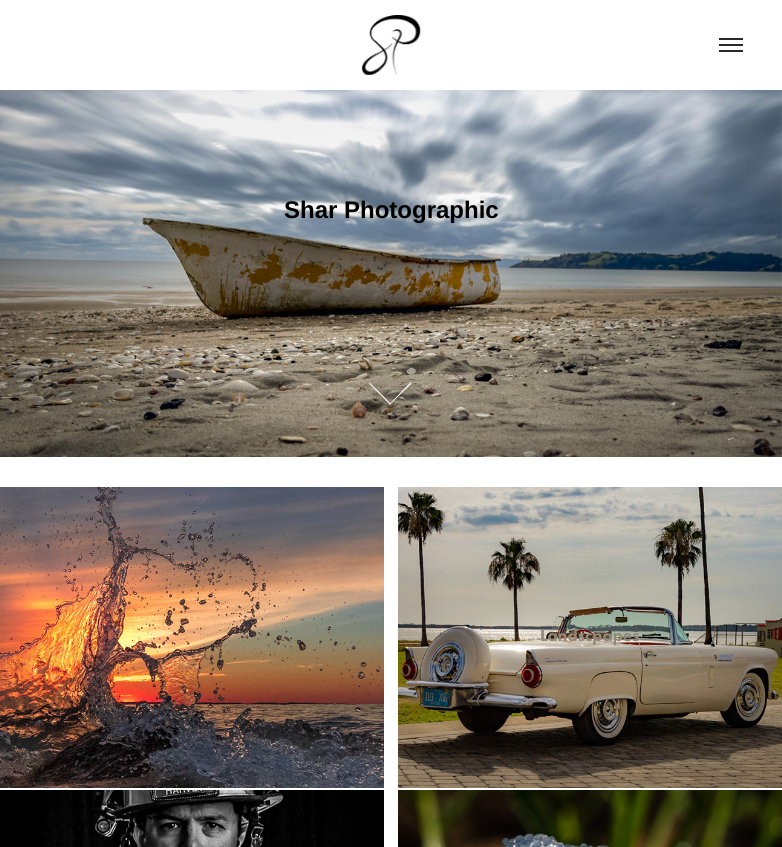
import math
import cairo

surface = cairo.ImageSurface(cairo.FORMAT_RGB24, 782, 847)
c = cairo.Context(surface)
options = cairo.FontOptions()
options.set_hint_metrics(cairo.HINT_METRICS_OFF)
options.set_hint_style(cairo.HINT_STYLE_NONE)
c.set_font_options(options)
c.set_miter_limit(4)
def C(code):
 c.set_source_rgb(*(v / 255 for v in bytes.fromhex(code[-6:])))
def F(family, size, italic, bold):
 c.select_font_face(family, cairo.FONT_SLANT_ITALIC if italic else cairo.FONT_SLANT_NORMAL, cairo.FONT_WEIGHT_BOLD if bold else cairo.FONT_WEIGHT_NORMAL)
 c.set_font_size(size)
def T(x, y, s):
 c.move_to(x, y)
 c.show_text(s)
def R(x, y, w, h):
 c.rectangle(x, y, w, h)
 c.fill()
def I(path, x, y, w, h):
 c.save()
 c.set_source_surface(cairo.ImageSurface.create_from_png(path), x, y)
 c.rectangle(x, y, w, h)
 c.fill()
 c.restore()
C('ffffff')
c.paint()
I('1.png',361,15,60,60)
C('282828')
R(719,38,24,2)
R(719,44,24,2)
R(719,50,24,2)
I('2.png',0,90,782,367)
F('Liberation Sans',24,0,1)
C('000000')
T(284,218,'Shar Photographic')
C('ffffff')
c.new_path()
c.move_to(410.5,382.5)
c.line_to(411.5,383.5)
c.line_to(390,404.5)
c.line_to(389.5,404)
c.close_path()
c.fill()
c.new_path()
c.move_to(369.5,382.5)
c.line_to(391,404)
c.line_to(390,404.5)
c.line_to(369,383.5)
c.close_path()
c.fill()
I('3.png',0,487,384,301)
I('4.png',398,487,384,301)
F('Futura PT Black',17,0,0)
C('928778')
T(540,641,'Landscpapes')
I('5.png',0,790,384,57)
I('6.png',398,790,384,57)
surface.write_to_png('o.png')
